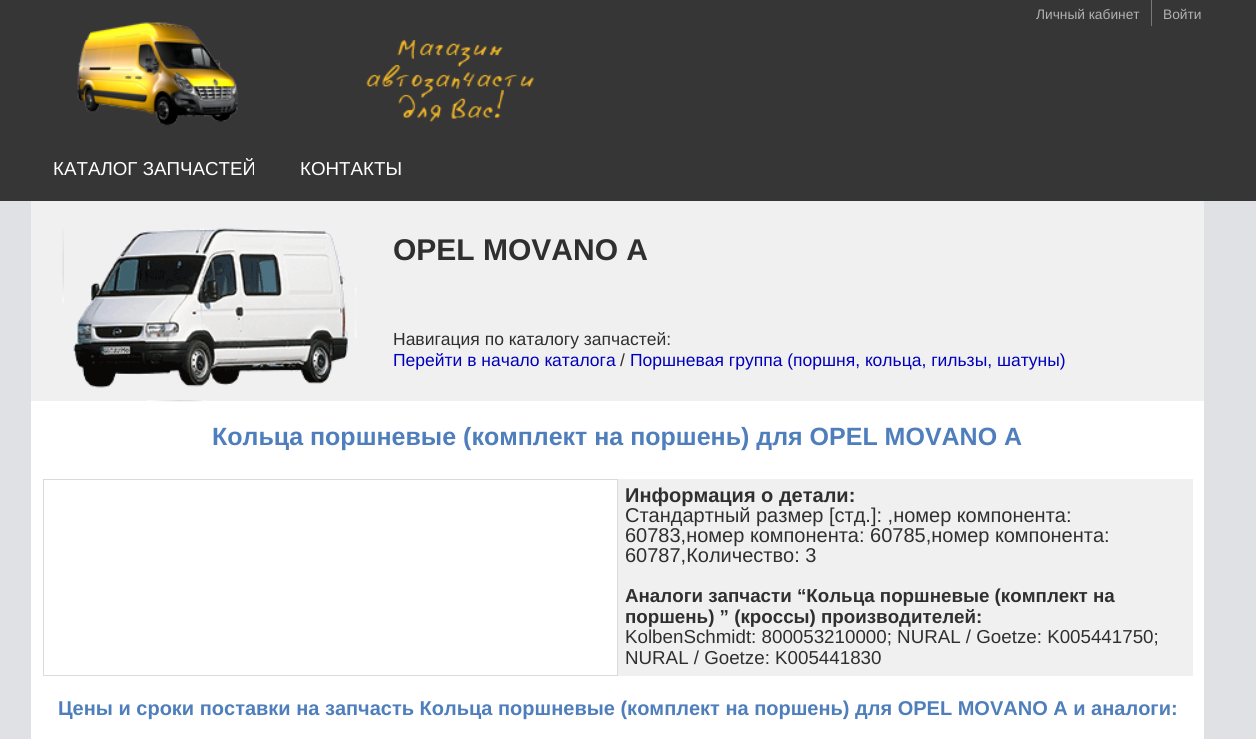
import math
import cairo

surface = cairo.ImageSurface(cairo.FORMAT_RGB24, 1256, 739)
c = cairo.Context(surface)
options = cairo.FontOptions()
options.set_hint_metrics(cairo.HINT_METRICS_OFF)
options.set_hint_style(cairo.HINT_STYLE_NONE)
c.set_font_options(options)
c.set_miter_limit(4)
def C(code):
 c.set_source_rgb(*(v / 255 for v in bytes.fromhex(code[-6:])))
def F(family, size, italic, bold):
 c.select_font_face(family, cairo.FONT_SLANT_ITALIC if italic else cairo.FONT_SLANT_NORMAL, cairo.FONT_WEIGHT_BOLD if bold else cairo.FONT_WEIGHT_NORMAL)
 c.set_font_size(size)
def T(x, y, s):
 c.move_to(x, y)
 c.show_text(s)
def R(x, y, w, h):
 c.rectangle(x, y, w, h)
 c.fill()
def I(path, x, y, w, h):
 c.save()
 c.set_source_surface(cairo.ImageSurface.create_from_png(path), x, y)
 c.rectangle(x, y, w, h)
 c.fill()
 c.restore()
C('e0e1e5')
c.paint()
C('363636')
R(0,0,1256,201)
C('797979')
R(1151,0,1,26)
F('Liberation Sans',13.75,0,0)
C('b1b1b1')
T(1036,19,'Личный кабинет')
T(1163,19,'Войти')
I('1.png',77,22,457,104)
F('Liberation Sans',18.75,0,0)
C('ffffff')
T(53,175,'КАТАЛОГ ЗАПЧАСТЕЙ')
T(300,175,'КОНТАКТЫ')
R(31,401,1173,338)
C('f0f0f0')
R(31,201,1173,200)
I('2.png',62,228,295,174)
F('Liberation Sans',30,0,1)
C('2f2f2f')
T(393,260,'OPEL MOVANO A')
F('Liberation Sans',17.5,0,0)
T(393,345,'Навигация по каталогу запчастей:')
C('0000bb')
T(393,366,'Перейти в начало каталога')
C('2f2f2f')
T(620,366,'/')
C('0000bb')
T(630,366,'Поршневая группа (поршня, кольца, гильзы, шатуны)')
F('Liberation Sans',25,0,1)
C('4e7ebb')
T(212,445,'Кольца поршневые (комплект на поршень) для OPEL MOVANO A')
c.rectangle(43.5,479.5,574,196)
C('dadada')
c.set_line_width(1)
c.stroke()
C('f0f0f0')
R(618,479,575,197)
F('Liberation Sans',20,0,1)
C('2f2f2f')
T(625,502,'Информация о детали:')
F('Liberation Sans',20,0,0)
T(625,522,'Стандартный размер [стд.]: ,номер компонента:')
T(625,542,'60783,номер компонента: 60785,номер компонента:')
T(625,562,'60787,Количество: 3')
F('Liberation Sans',18.75,0,1)
T(625,602,'Аналоги запчасти “Кольца поршневые (комплект на')
T(625,623,'поршень) ” (кроссы) производителей:')
F('Liberation Sans',18.75,0,0)
T(625,643,'KolbenSchmidt: 800053210000; NURAL / Goetze: K005441750;')
T(625,664,'NURAL / Goetze: K005441830')
F('Liberation Sans',20,0,1)
C('4e7ebb')
T(58,715,'Цены и сроки поставки на запчасть Кольца поршневые (комплект на поршень) для OPEL MOVANO A и аналоги:')
surface.write_to_png('o.png')
